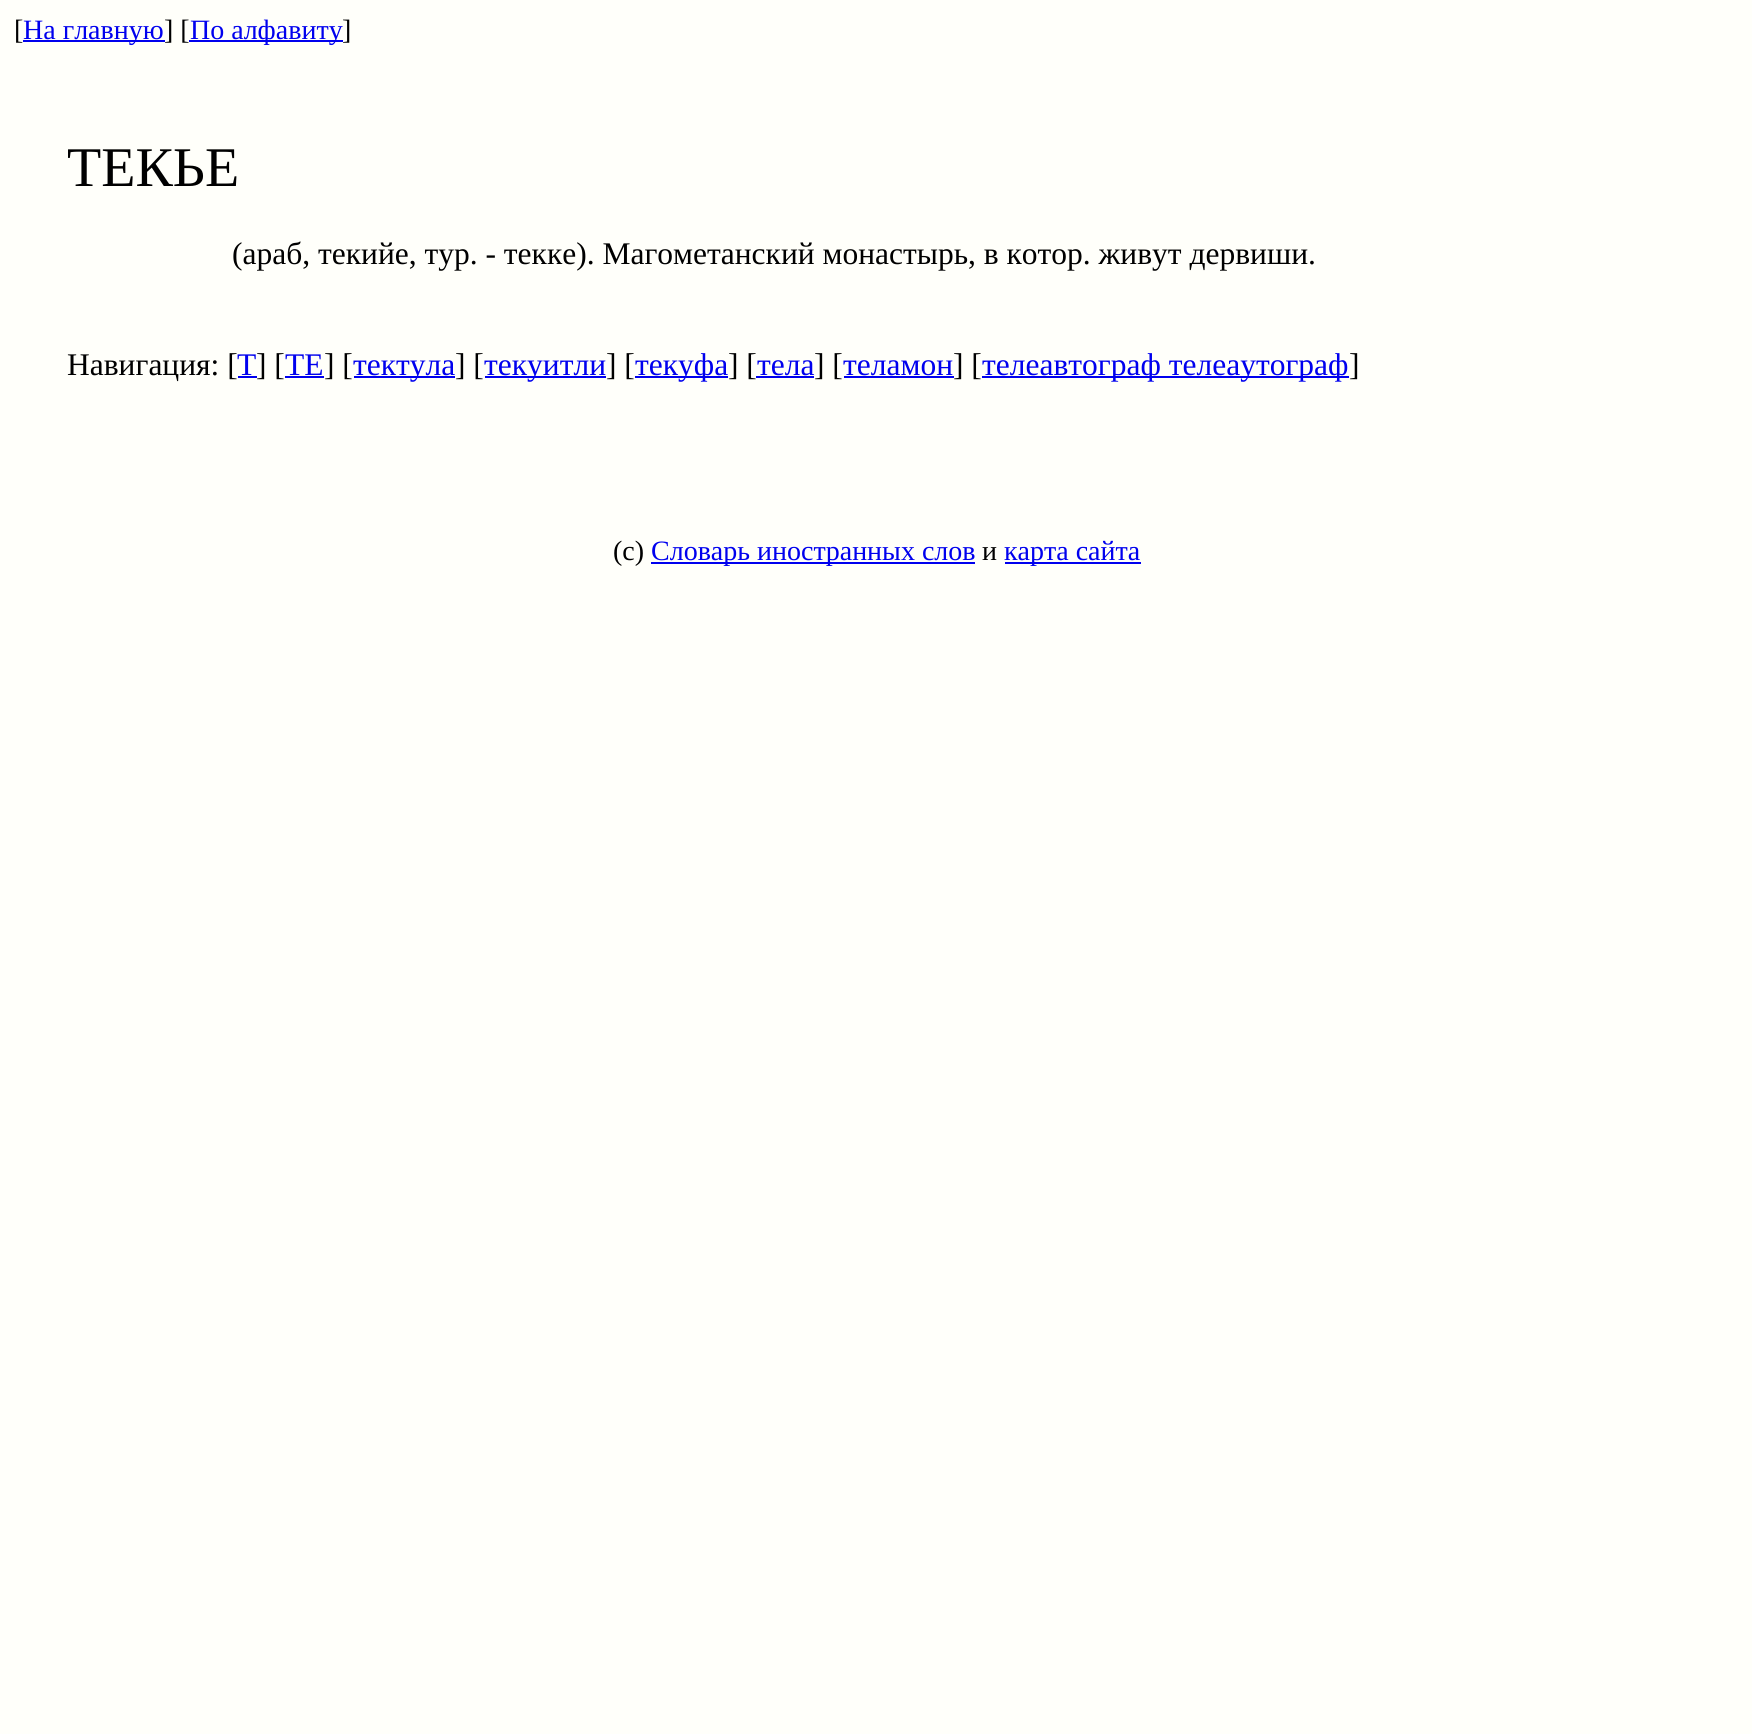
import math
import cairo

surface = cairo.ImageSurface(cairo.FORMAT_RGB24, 1752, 1734)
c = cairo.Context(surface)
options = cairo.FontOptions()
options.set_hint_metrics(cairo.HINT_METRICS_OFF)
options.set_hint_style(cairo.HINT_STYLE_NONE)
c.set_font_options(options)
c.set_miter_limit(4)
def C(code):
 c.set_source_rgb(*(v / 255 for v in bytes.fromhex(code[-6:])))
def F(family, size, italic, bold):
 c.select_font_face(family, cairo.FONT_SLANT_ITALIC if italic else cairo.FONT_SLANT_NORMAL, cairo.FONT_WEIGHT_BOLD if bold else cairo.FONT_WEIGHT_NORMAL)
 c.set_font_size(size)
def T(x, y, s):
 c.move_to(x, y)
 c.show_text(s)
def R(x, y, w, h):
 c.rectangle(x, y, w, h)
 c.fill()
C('fffffa')
c.paint()
F('Liberation Serif',28,0,0)
C('000000')
T(14,39,'[')
C('0000ee')
R(23,40,142,2)
T(23,39,'На главную')
C('000000')
T(164,39,'] [')
C('0000ee')
R(189,40,154,2)
T(190,39,'По алфавиту')
C('000000')
T(342,39,']')
F('Liberation Serif',56,0,0)
T(67,186,'ТЕКЬЕ')
F('Liberation Serif',31.5,0,0)
T(232,264,'(араб, текийе, тур. - текке). Магометанский монастырь, в котор. живут дервиши.')
T(67,375,'Навигация: [')
C('0000ee')
R(238,376,19,2)
T(237,375,'Т')
C('000000')
T(256,375,'] [')
C('0000ee')
R(285,376,39,2)
T(285,375,'ТЕ')
C('000000')
T(324,375,'] [')
C('0000ee')
R(354,376,101,2)
T(353,375,'тектула')
C('000000')
T(455,375,'] [')
C('0000ee')
R(485,376,121,2)
T(484,375,'текуитли')
C('000000')
T(606,375,'] [')
C('0000ee')
R(635,376,93,2)
T(635,375,'текуфа')
C('000000')
T(728,375,'] [')
C('0000ee')
T(757,375,'тела')
R(756,376,58,2)
C('000000')
T(814,375,'] [')
C('0000ee')
T(843,375,'теламон')
R(844,376,110,2)
C('000000')
T(953,375,'] [')
C('0000ee')
R(982,376,367,2)
T(982,375,'телеавтограф телеаутограф')
C('000000')
T(1349,375,']')
F('Liberation Serif',28,0,0)
T(613,560,'(c)')
C('0000ee')
R(651,562,324,2)
T(651,560,'Словарь иностранных слов')
C('000000')
T(982,560,'и')
C('0000ee')
R(1005,562,136,2)
T(1004,560,'карта сайта')
surface.write_to_png('o.png')
